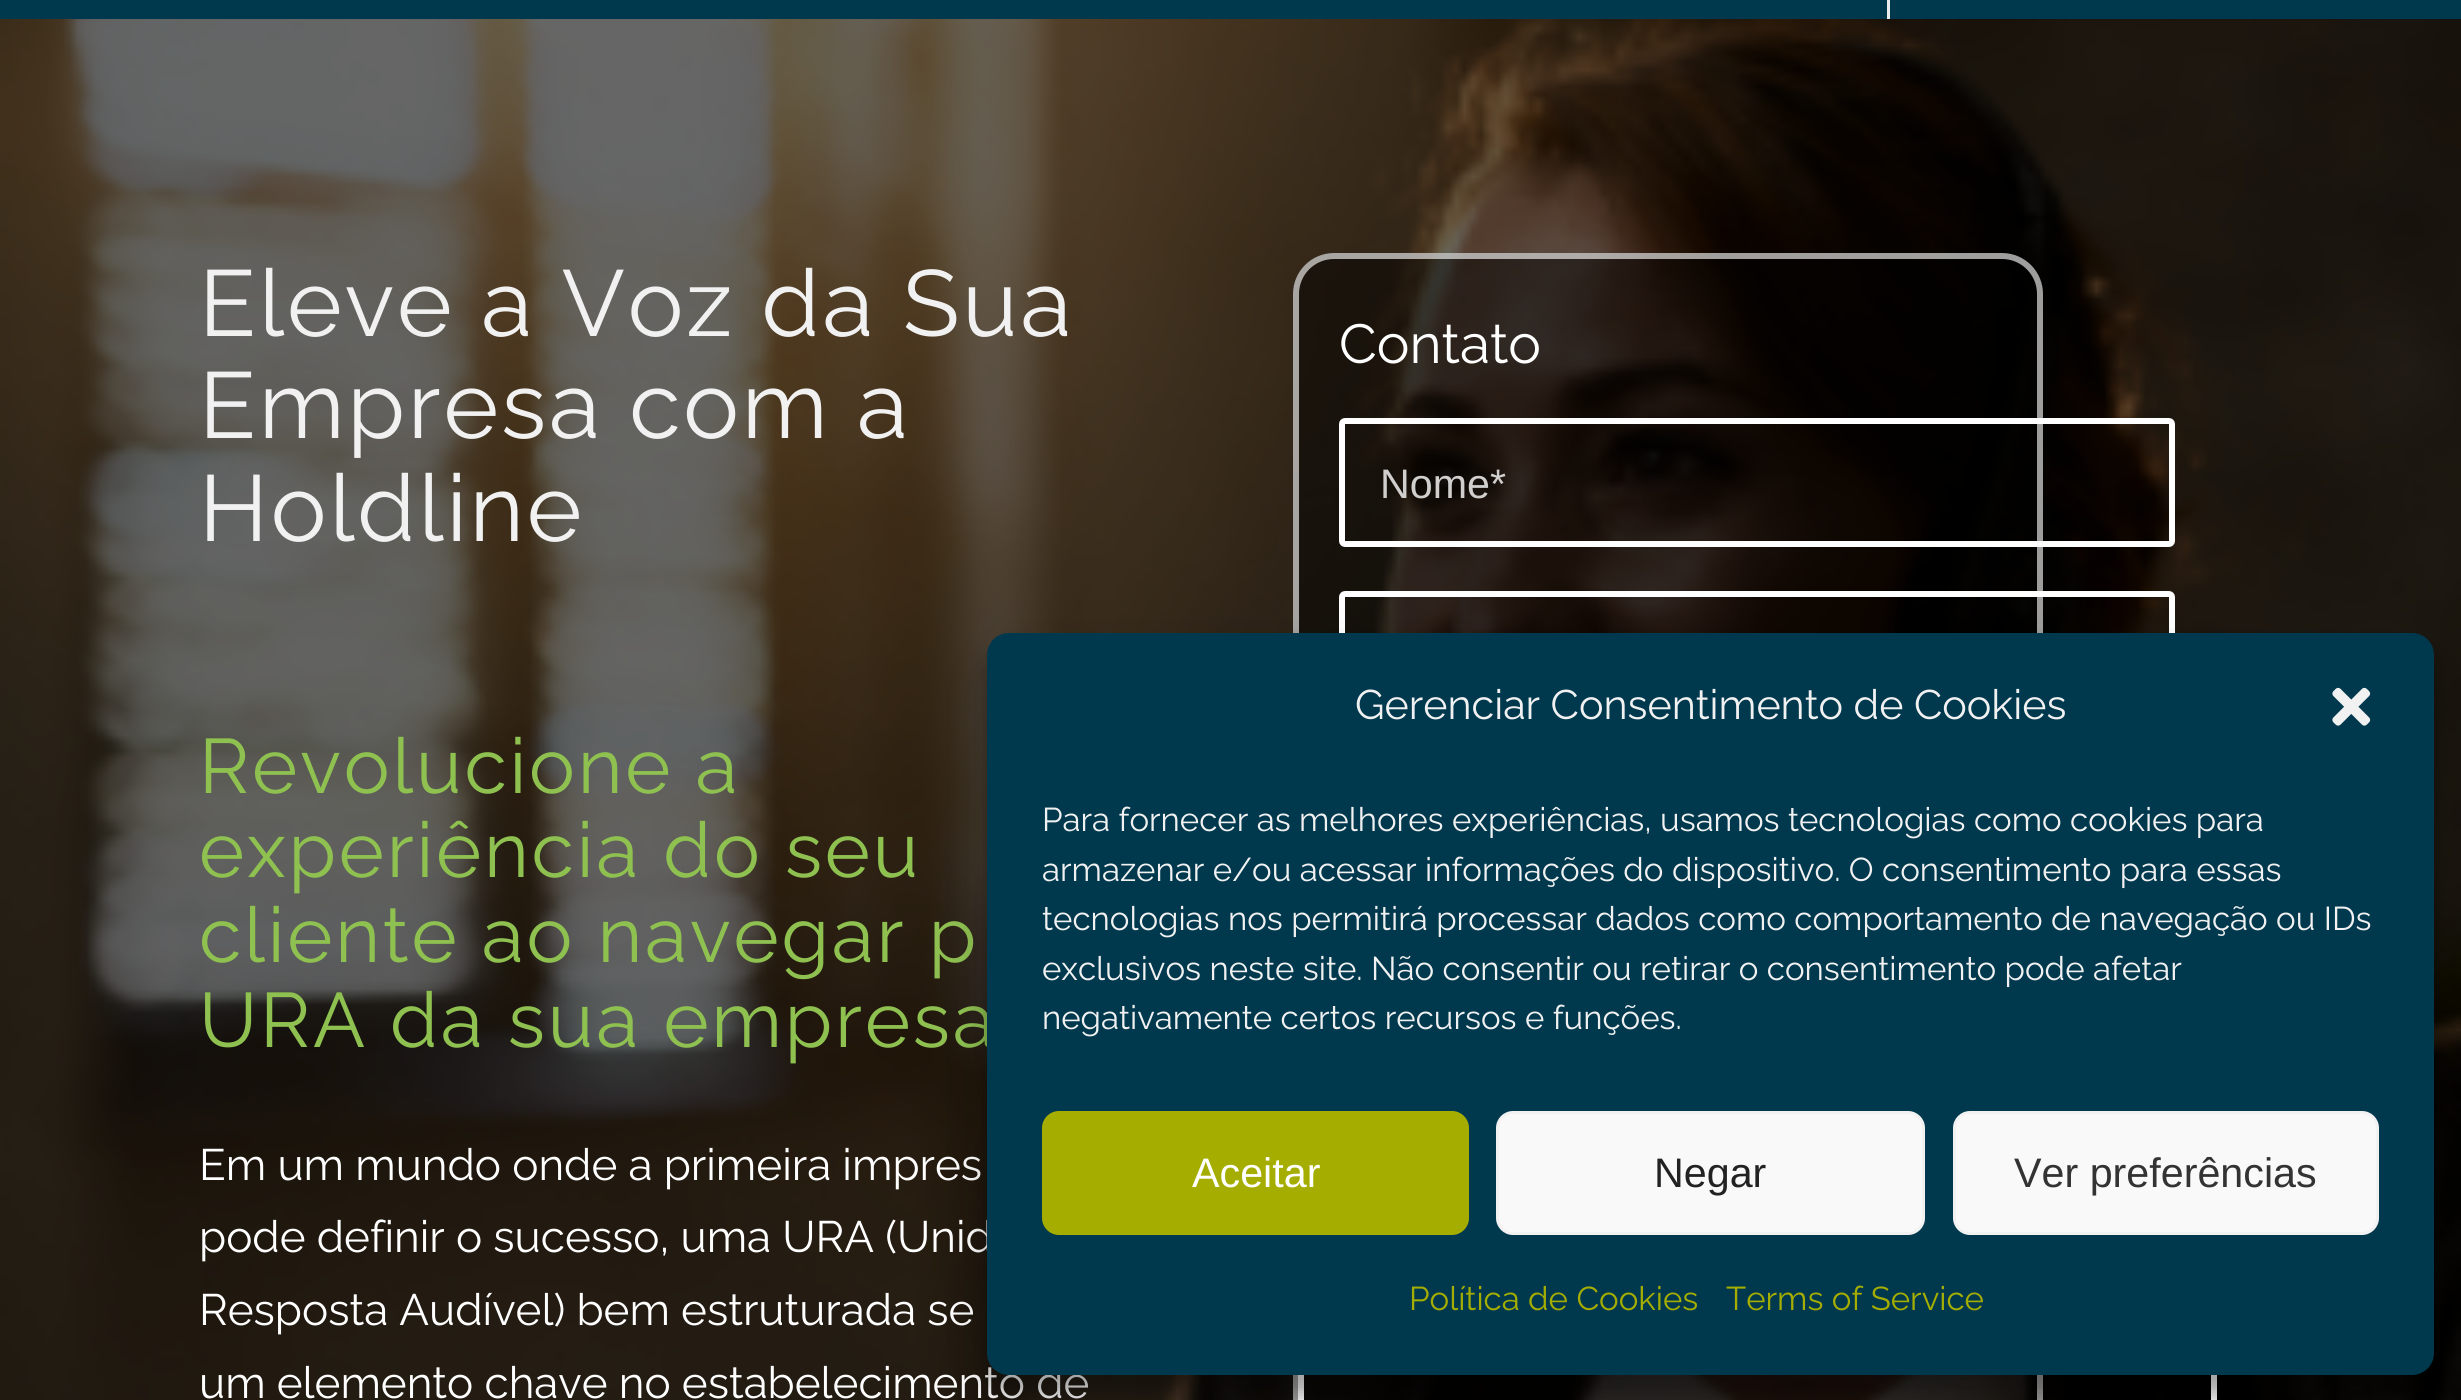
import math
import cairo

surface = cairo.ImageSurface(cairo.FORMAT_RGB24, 2461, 1400)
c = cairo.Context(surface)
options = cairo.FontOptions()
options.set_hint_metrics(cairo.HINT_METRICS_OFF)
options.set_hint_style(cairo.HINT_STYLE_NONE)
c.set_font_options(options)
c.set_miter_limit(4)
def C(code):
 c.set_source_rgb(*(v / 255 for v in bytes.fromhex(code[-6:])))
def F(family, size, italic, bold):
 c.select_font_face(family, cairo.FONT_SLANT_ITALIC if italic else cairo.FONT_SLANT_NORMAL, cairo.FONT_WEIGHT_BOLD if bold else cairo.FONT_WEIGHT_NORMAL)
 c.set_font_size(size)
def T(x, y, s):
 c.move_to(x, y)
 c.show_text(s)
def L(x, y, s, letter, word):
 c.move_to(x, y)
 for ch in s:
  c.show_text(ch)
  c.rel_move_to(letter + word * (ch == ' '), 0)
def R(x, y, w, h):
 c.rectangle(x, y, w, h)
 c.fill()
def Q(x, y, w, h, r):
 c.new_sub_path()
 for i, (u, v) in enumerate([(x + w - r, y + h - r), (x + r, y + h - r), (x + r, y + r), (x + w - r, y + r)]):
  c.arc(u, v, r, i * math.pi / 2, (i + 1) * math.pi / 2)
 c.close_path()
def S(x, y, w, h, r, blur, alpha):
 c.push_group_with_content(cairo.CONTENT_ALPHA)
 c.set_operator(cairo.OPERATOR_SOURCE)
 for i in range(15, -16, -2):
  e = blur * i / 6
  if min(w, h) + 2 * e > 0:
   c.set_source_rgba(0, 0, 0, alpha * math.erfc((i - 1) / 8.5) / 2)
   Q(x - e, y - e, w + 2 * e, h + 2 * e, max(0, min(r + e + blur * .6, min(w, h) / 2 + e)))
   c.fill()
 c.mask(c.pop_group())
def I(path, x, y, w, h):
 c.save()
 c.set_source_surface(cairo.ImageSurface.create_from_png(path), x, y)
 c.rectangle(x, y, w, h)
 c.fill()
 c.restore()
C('ffffff')
c.paint()
C('00394e')
R(0,0,2461,19)
C('ebebeb')
R(1887,0,3,19)
I('1.png',0,19,2461,1381)
F('Raleway Thin',93.5,0,0)
C('f1f1f1')
L(199,336,'Eleve a Voz da Sua',2.75,0)
L(199,438,'Empresa com a',2.75,0)
L(199,541,'Holdline',2.75,0)
F('Raleway Thin',77,0,0)
C('8fc151')
L(199,793,'Revolucione a',2.75,0)
L(199,877,'experiência do seu',2.75,0)
L(199,962,'cliente ao navegar p',2.75,0)
L(199,1047,'URA da sua empresa',2.75,0)
F('Raleway Thin',44,0,0)
C('ffffff')
T(199,1180,'Em um mundo onde a primeira impres')
T(199,1252,'pode definir o sucesso, uma URA (Unid')
T(199,1325,'Resposta Audível) bem estruturada se')
T(199,1398,'um elemento chave no estabelecimento de')
c.set_source_rgba(0,0,0,0.49)
Q(1293,253,750,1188,41)
c.fill()
Q(1296,256,744,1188,38)
c.set_source_rgba(1,1,1,0.62)
c.set_line_width(6)
c.stroke()
F('Raleway Thin',55,0,0)
C('ffffff')
T(1339,363,'Contato')
Q(1342,421,830,123,3)
c.stroke()
F('Liberation Sans',41.25,0,0)
C('d0cfce')
T(1380,498,'Nome*')
Q(1342,594,830,124,3)
C('ffffff')
c.stroke()
c.rectangle(1301,1073,913,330)
c.stroke()
C('000000')
S(987,649,1447,743,22,8,.23)
S(987,660,1447,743,22,27.5,.19)
C('00394e')
Q(987,633,1447,742,22)
c.fill()
F('Raleway Thin',41.25,0,0)
C('f1f1f1')
T(1355,719,'Gerenciar Consentimento de Cookies')
I('2.png',2332,687,39,39)
F('Raleway Thin',33,0,0)
T(1042,831,'Para fornecer as melhores experiências, usamos tecnologias como cookies para')
T(1042,881,'armazenar e/ou acessar informações do dispositivo. O consentimento para essas')
T(1042,930,'tecnologias nos permitirá processar dados como comportamento de navegação ou IDs')
T(1042,980,'exclusivos neste site. Não consentir ou retirar o consentimento pode afetar')
T(1042,1029,'negativamente certos recursos e funções.')
C('a5ae00')
Q(1043.5,1112.5,424,121,15.5)
c.fill_preserve()
c.set_line_width(3)
c.stroke()
F('Liberation Sans',41.25,0,0)
C('ffffff')
T(1192,1187,'Aceitar')
C('f9f9f9')
Q(1497.5,1112.5,426,121,15.5)
c.fill_preserve()
C('f2f2f2')
c.stroke()
C('222222')
T(1654,1187,'Negar')
C('f9f9f9')
Q(1954.5,1112.5,423,121,15.5)
c.fill_preserve()
C('f2f2f2')
c.stroke()
C('333333')
T(2014,1187,'Ver preferências')
F('Raleway Thin',33,0,0)
C('a5ae00')
T(1409,1310,'Política de Cookies')
T(1726,1310,'Terms of Service')
surface.write_to_png('o.png')
